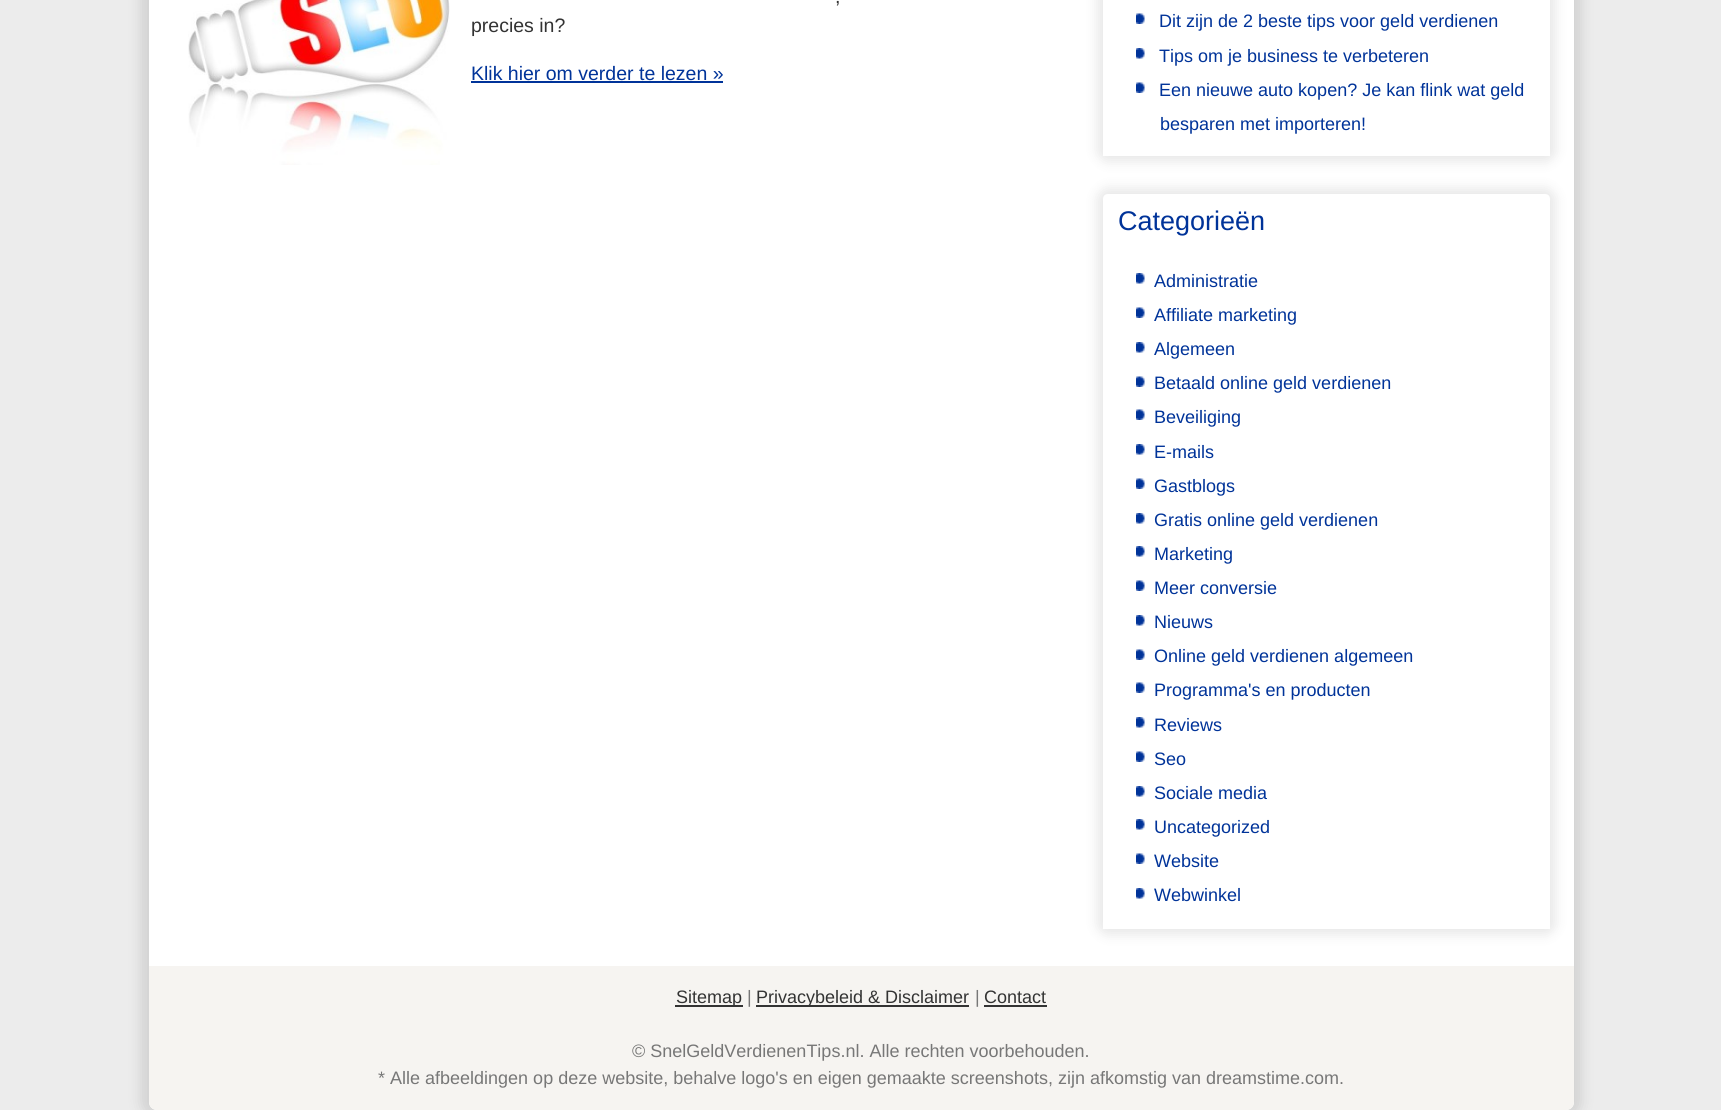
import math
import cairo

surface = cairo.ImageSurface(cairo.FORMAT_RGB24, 1721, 1110)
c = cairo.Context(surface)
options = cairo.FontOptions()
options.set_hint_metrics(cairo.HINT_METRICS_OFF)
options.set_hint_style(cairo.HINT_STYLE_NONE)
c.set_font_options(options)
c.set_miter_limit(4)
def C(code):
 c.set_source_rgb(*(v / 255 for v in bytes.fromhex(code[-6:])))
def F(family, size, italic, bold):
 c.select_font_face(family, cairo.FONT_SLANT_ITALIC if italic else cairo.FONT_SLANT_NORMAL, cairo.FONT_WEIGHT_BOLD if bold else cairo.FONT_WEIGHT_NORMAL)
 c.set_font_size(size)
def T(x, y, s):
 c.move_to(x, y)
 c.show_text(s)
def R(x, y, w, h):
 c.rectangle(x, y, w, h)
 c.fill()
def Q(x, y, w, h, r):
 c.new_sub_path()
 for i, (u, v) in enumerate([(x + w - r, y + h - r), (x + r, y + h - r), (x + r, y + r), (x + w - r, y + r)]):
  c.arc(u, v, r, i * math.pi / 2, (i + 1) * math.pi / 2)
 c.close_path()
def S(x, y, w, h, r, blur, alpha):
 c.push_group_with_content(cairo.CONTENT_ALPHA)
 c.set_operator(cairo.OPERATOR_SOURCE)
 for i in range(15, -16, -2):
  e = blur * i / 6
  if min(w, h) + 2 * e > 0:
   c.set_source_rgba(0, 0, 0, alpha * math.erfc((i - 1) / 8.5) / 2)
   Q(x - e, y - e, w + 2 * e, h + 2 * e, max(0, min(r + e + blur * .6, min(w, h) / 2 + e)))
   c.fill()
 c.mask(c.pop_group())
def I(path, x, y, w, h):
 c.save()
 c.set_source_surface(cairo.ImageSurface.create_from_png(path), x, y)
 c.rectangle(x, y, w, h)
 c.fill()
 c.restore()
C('ececec')
c.paint()
C('000000')
S(141,-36,1440,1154,15,7,.12)
C('ffffff')
c.new_path()
c.move_to(149,-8)
c.line_to(1574,-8)
c.line_to(1574,1102)
c.curve_to(1574,1106.5,1570.5,1110,1566,1110)
c.line_to(157,1110)
c.curve_to(152.5,1110,149,1106.5,149,1102)
c.close_path()
c.fill()
I('1.png',188,0,262,165)
F('Liberation Sans',19.5,0,0)
C('333333')
T(835,3,',')
T(471,32,'precies in?')
C('003399')
T(471,80,'Klik hier om verder te lezen »')
R(471,81,252,2)
C('000000')
S(1097,-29,459,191,11,6,.09)
C('ffffff')
R(1103,0,447,156)
I('2.png',1136,13,9,11)
F('Liberation Sans',18,0,0)
C('003399')
T(1159,27,'Dit zijn de 2 beste tips voor geld verdienen')
I('3.png',1136,48,9,11)
T(1159,62,'Tips om je business te verbeteren')
I('2.png',1136,82,9,11)
T(1159,96,'Een nieuwe auto kopen? Je kan flink wat geld')
T(1160,130,'besparen met importeren!')
C('000000')
S(1097,188,459,747,11,6,.09)
C('ffffff')
c.new_path()
c.move_to(1108,194)
c.line_to(1545,194)
c.curve_to(1548,194,1550,196,1550,199)
c.line_to(1550,929)
c.line_to(1103,929)
c.line_to(1103,199)
c.curve_to(1103,196,1105,194,1108,194)
c.close_path()
c.fill()
F('Liberation Sans',27,0,0)
C('003399')
T(1118,230,'Categorieën')
I('3.png',1136,273,9,11)
F('Liberation Sans',18,0,0)
T(1154,287,'Administratie')
I('2.png',1136,307,9,11)
T(1154,321,'Affiliate marketing')
I('3.png',1136,342,9,11)
T(1154,355,'Algemeen')
I('2.png',1136,376,9,11)
T(1154,389,'Betaald online geld verdienen')
I('2.png',1136,409,9,11)
T(1154,423,'Beveiliging')
I('3.png',1136,444,9,11)
T(1154,458,'E-mails')
I('2.png',1136,478,9,11)
T(1154,492,'Gastblogs')
I('3.png',1136,513,9,11)
T(1154,526,'Gratis online geld verdienen')
I('3.png',1136,546,9,11)
T(1154,560,'Marketing')
I('2.png',1136,580,9,11)
T(1154,594,'Meer conversie')
I('3.png',1136,615,9,11)
T(1154,628,'Nieuws')
I('2.png',1136,649,9,11)
T(1154,662,'Online geld verdienen algemeen')
I('2.png',1136,682,9,11)
T(1154,696,'Programma\'s en producten')
I('3.png',1136,717,9,11)
T(1154,731,'Reviews')
I('2.png',1136,751,9,11)
T(1154,765,'Seo')
I('3.png',1136,786,9,11)
T(1154,799,'Sociale media')
I('3.png',1136,819,9,11)
T(1154,833,'Uncategorized')
I('2.png',1136,853,9,11)
T(1154,867,'Website')
I('3.png',1136,888,9,11)
T(1154,901,'Webwinkel')
C('f6f4f1')
c.new_path()
c.move_to(149,966)
c.line_to(1574,966)
c.line_to(1574,1102)
c.curve_to(1574,1106.5,1570.5,1110,1566,1110)
c.line_to(157,1110)
c.curve_to(152.5,1110,149,1106.5,149,1102)
c.close_path()
c.fill()
C('333333')
R(675,1005,68,2)
T(676,1003,'Sitemap')
C('777777')
T(747,1003,'|')
C('333333')
R(756,1005,213,2)
T(756,1003,'Privacybeleid & Disclaimer')
C('777777')
T(975,1003,'|')
C('333333')
T(984,1003,'Contact')
R(984,1005,63,2)
C('777777')
T(632,1057,'© SnelGeldVerdienenTips.nl. Alle rechten voorbehouden.')
T(378,1084,'* Alle afbeeldingen op deze website, behalve logo\'s en eigen gemaakte screenshots, zijn afkomstig van dreamstime.com.')
surface.write_to_png('o.png')
